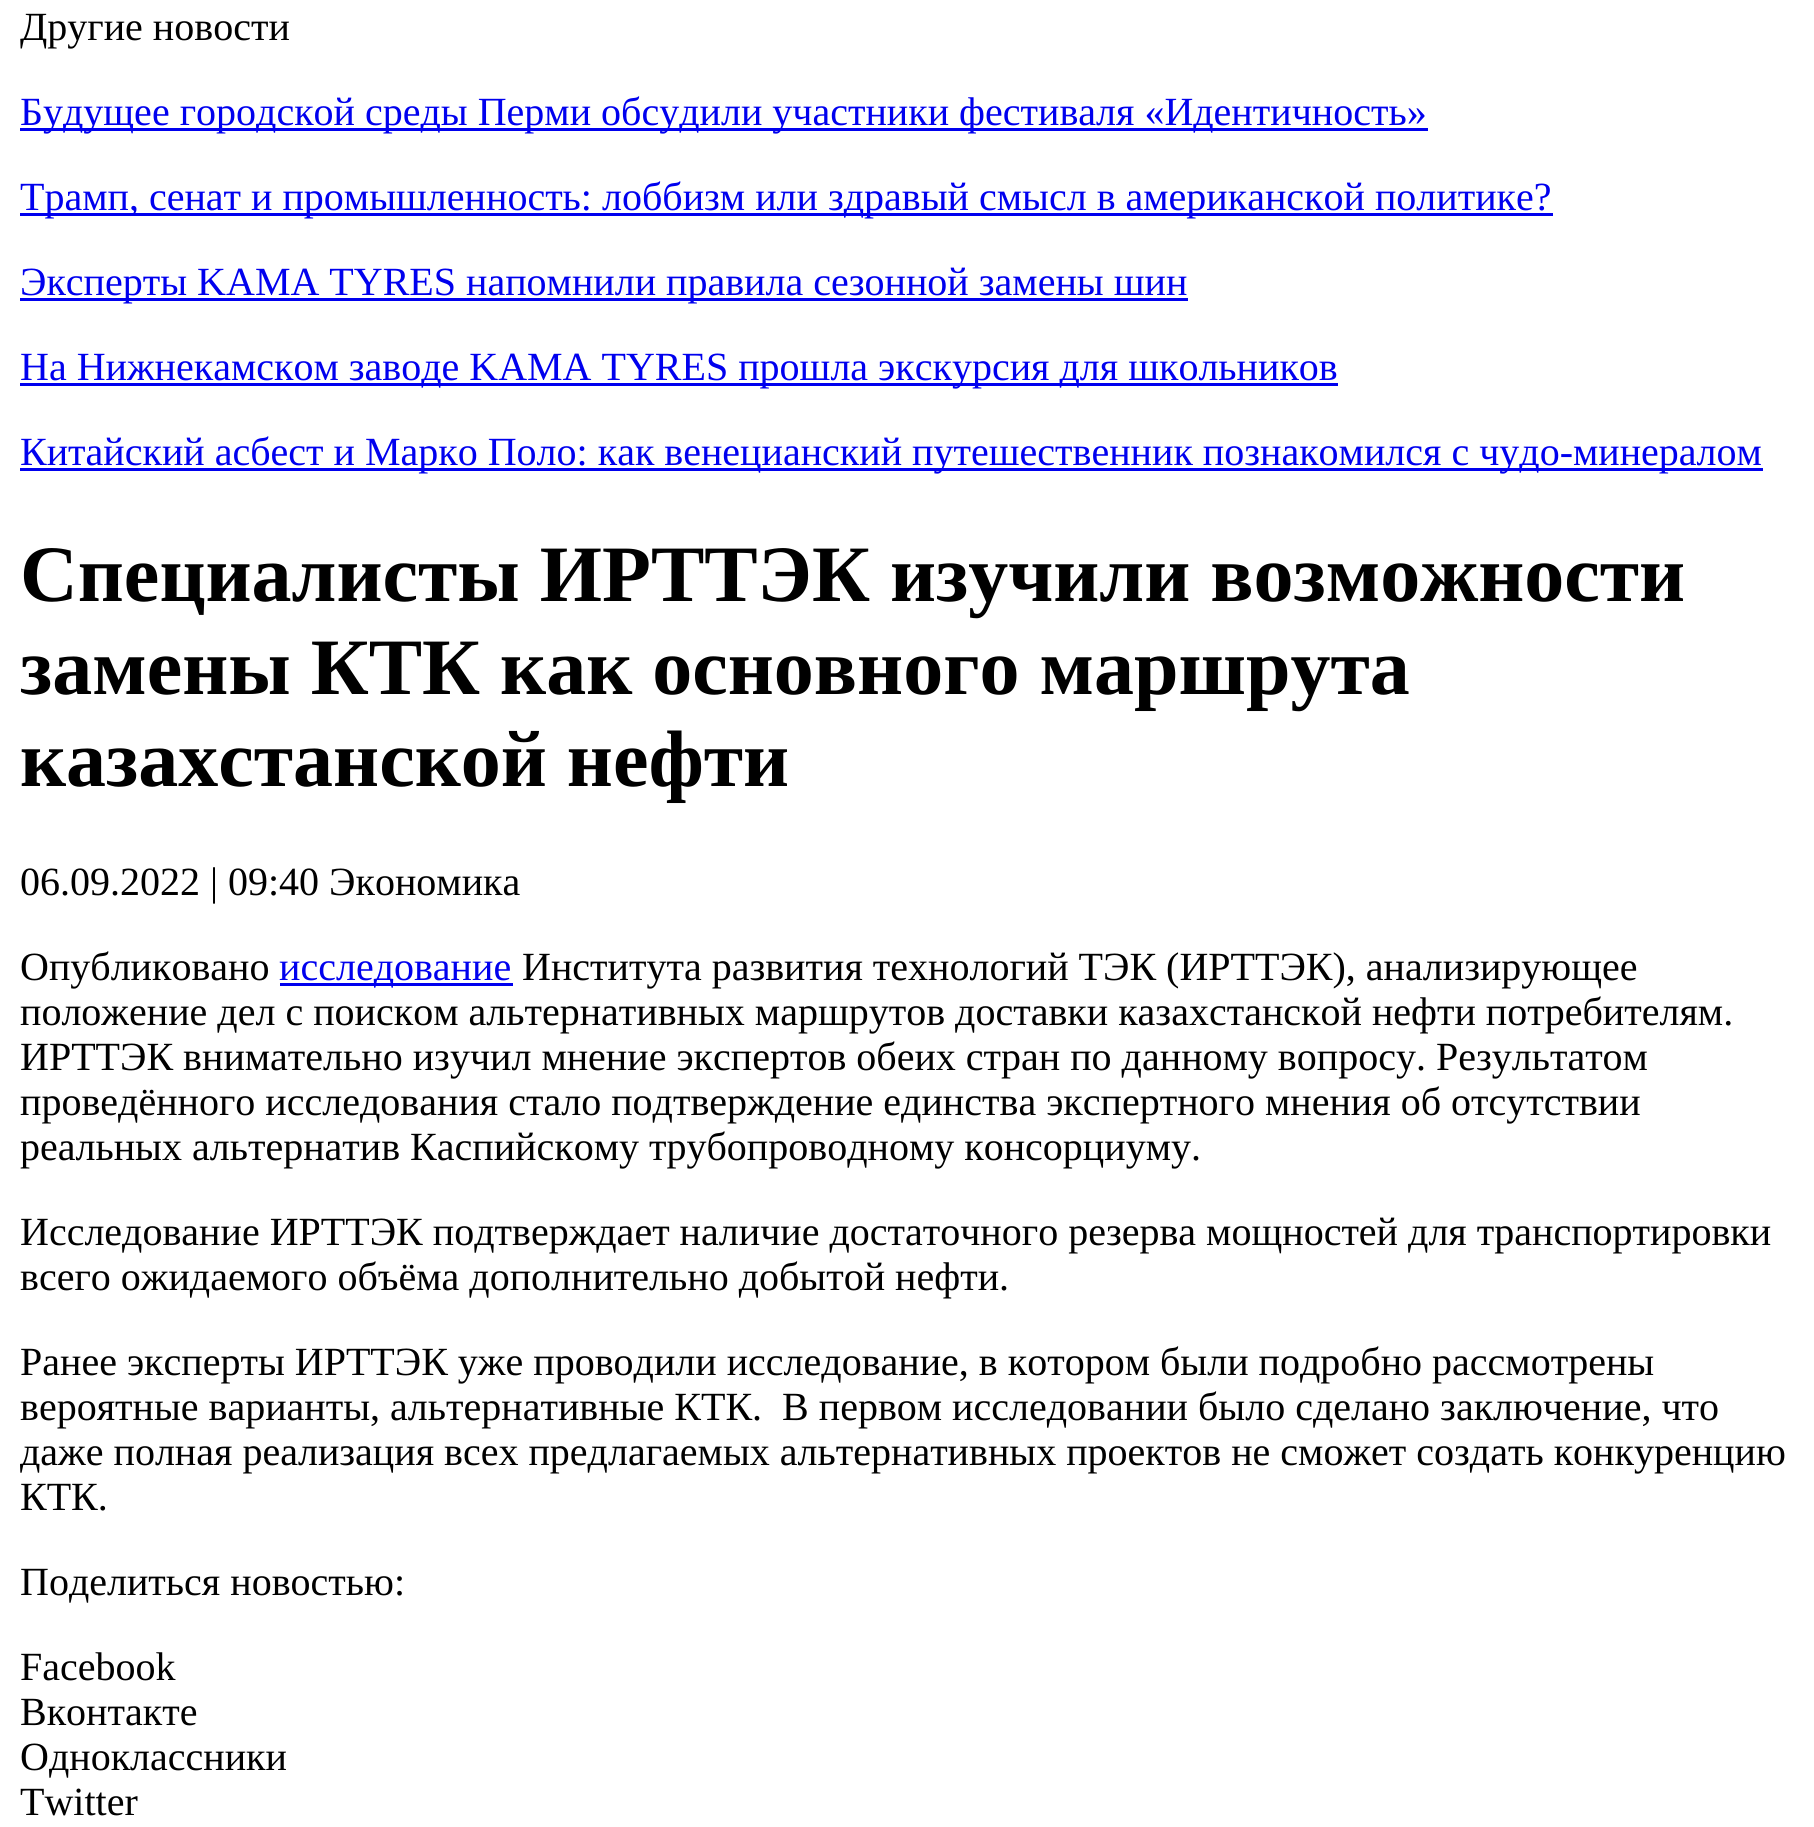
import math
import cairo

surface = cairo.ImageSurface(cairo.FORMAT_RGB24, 1814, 1827)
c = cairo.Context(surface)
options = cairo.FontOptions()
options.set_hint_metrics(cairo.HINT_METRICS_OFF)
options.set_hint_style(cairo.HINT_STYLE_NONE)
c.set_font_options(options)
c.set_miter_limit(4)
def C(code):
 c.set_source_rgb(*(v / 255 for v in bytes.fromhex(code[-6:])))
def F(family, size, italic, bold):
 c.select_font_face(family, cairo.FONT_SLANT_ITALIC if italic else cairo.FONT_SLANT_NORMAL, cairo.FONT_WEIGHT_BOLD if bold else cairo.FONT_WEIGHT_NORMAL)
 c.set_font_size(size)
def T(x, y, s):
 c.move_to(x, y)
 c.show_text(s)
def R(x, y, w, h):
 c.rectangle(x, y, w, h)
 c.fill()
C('ffffff')
c.paint()
F('Liberation Serif',40,0,0)
C('000000')
T(20,40,'Другие новости')
C('0000ee')
R(20,128,1408,3)
T(20,125,'Будущее городской среды Перми обсудили участники фестиваля «Идентичность»')
R(20,213,1533,3)
T(20,210,'Трамп, сенат и промышленность: лоббизм или здравый смысл в американской политике?')
R(20,298,1168,3)
T(20,295,'Эксперты KAMA TYRES напомнили правила сезонной замены шин')
R(20,383,1318,3)
T(20,380,'На Нижнекамском заводе KAMA TYRES прошла экскурсия для школьников')
R(20,468,1743,3)
T(20,465,'Китайский асбест и Марко Поло: как венецианский путешественник познакомился с чудо-минералом')
F('Liberation Serif',80,0,1)
C('000000')
T(20,601,'Специалисты ИРТТЭК изучили возможности')
T(20,694,'замены КТК как основного маршрута')
T(20,786,'казахстанской нефти')
F('Liberation Serif',40,0,0)
T(20,895,'06.09.2022 | 09:40 Экономика')
T(20,980,'Опубликовано')
C('0000ee')
R(280,983,233,3)
T(279,980,'исследование')
C('000000')
T(522,980,'Института развития технологий ТЭК (ИРТТЭК), анализирующее')
T(20,1025,'положение дел с поиском альтернативных маршрутов доставки казахстанской нефти потребителям.')
T(20,1070,'ИРТТЭК внимательно изучил мнение экспертов обеих стран по данному вопросу. Результатом')
T(20,1115,'проведённого исследования стало подтверждение единства экспертного мнения об отсутствии')
T(20,1160,'реальных альтернатив Каспийскому трубопроводному консорциуму.')
T(20,1245,'Исследование ИРТТЭК подтверждает наличие достаточного резерва мощностей для транспортировки')
T(20,1290,'всего ожидаемого объёма дополнительно добытой нефти.')
T(20,1375,'Ранее эксперты ИРТТЭК уже проводили исследование, в котором были подробно рассмотрены')
T(20,1420,'вероятные варианты, альтернативные КТК.  В первом исследовании было сделано заключение, что')
T(20,1465,'даже полная реализация всех предлагаемых альтернативных проектов не сможет создать конкуренцию')
T(20,1510,'КТК.')
T(20,1595,'Поделиться новостью:')
T(20,1680,'Facebook')
T(20,1725,'Вконтакте')
T(20,1770,'Одноклассники')
T(20,1815,'Twitter')
surface.write_to_png('o.png')
